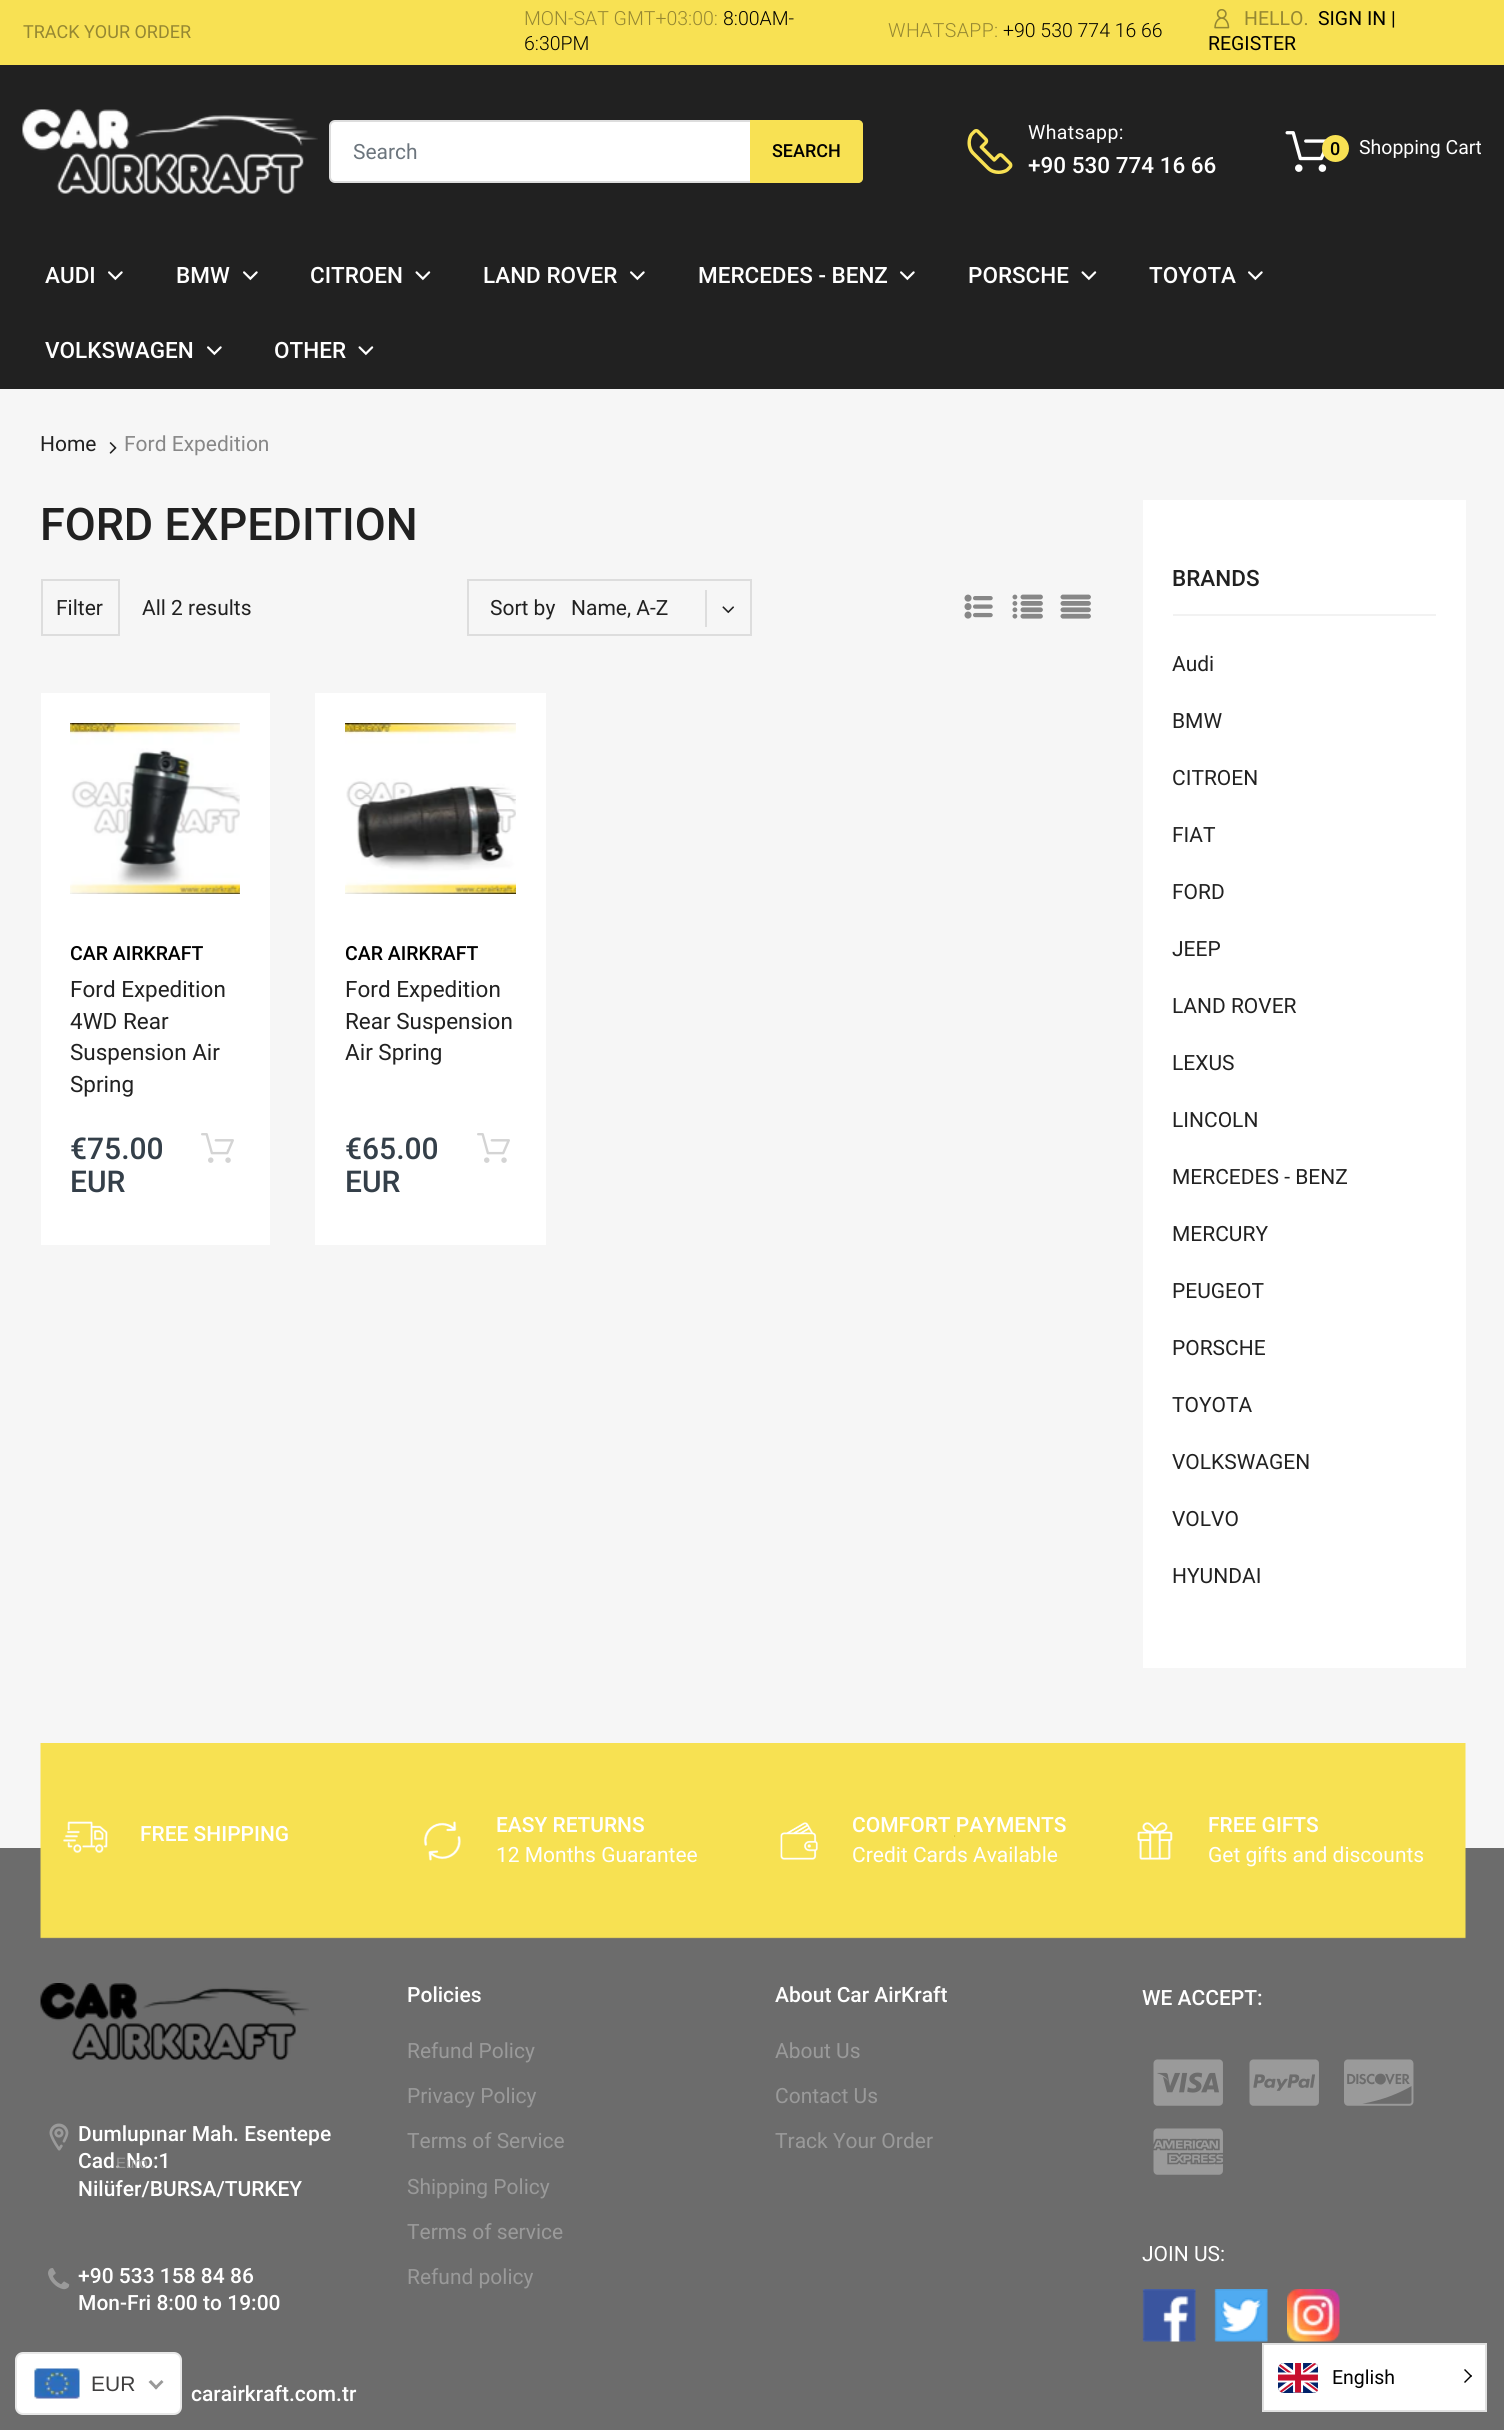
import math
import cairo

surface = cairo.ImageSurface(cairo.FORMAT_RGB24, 1504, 2430)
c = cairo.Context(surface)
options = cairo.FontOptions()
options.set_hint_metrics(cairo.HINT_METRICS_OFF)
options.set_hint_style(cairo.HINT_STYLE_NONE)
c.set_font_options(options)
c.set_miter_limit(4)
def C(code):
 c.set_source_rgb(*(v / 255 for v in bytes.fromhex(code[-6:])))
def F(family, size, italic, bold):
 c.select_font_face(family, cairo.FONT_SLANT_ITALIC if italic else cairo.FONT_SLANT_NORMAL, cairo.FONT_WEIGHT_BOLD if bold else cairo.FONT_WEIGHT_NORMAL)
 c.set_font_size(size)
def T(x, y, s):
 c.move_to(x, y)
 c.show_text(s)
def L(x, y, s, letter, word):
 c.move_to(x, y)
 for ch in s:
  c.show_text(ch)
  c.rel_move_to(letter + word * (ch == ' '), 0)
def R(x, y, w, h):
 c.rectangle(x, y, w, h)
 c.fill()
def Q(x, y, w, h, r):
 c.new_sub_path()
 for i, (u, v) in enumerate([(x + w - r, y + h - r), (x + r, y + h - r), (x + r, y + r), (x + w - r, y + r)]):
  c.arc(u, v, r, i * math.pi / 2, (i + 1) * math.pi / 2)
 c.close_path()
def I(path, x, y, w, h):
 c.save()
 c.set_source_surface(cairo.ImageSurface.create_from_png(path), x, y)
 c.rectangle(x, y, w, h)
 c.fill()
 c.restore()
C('f6f6f6')
c.paint()
C('212121')
R(0,65,1504,324)
C('f8e153')
R(0,0,1504,65)
F('Roboto',18,0,0)
C('958732')
T(23,38,'TRACK YOUR ORDER')
F('Roboto Light',19.5,0,0)
T(524,25,'MON-SAT GMT+03:00:')
C('000000')
T(723,25,'8:00AM-')
T(524,50,'6:30PM')
C('958732')
L(888,37,'WHATSAPP:',.4,0)
C('000000')
T(1003,37,'+90 530 774 16 66')
I('1.png',1214,9,16,20)
F('Roboto',19.5,0,0)
C('958732')
T(1244,25,'HELLO.')
C('000000')
T(1318,25,'SIGN IN |')
T(1208,50,'REGISTER')
I('2.png',22,109,296,85)
C('ffffff')
Q(330,121,532,61,5)
c.fill_preserve()
C('dddddd')
c.stroke()
F('Roboto',21,0,0)
C('6c757d')
T(353,159,'Search')
C('f8e153')
c.new_path()
c.move_to(750,120)
c.line_to(858,120)
c.curve_to(861,120,863,122,863,125)
c.line_to(863,178)
c.curve_to(863,181,861,183,858,183)
c.line_to(750,183)
c.close_path()
c.fill()
F('Roboto Medium',18,0,0)
C('000000')
T(772,157,'SEARCH')
I('3.png',967,129,46,45)
F('Roboto',19.5,0,0)
C('ffffff')
L(1028,139,'Whatsapp:',.4,0)
F('Roboto Medium',22.5,0,0)
T(1028,173,'+90 530 774 16 66')
I('4.png',1285,131,42,41)
C('f8e153')
c.arc(1335.5,148.5,13.5,0,2 * math.pi)
c.fill()
F('Roboto Medium',18,0,0)
C('000000')
T(1330,155,'0')
F('Roboto',19.5,0,0)
C('ffffff')
T(1359,154,'Shopping Cart')
F('Roboto Medium',22.5,0,0)
T(45,283,'AUDI')
I('5.png',108,271,15,10)
T(176,283,'BMW')
I('5.png',243,271,15,10)
T(310,283,'CITROEN')
I('6.png',415,271,16,10)
T(483,283,'LAND ROVER')
I('5.png',630,271,15,10)
T(698,283,'MERCEDES - BENZ')
I('5.png',900,271,15,10)
T(968,283,'PORSCHE')
I('6.png',1081,271,16,10)
T(1149,283,'TOYOTA')
I('5.png',1248,271,15,10)
T(45,358,'VOLKSWAGEN')
I('5.png',207,346,15,10)
T(274,358,'OTHER')
I('6.png',358,346,16,10)
F('Roboto',21,0,0)
C('212121')
T(40,451,'Home')
I('7.png',109,442,8,12)
C('878787')
T(124,451,'Ford Expedition')
F('Roboto Medium',45,0,0)
C('212121')
T(40,540,'FORD EXPEDITION')
c.rectangle(42,580,77,55)
C('dddddd')
c.stroke()
F('Roboto',21,0,0)
C('212121')
T(56,615,'Filter')
T(142,615,'All 2 results')
c.rectangle(468,580,283,55)
C('dddddd')
c.stroke()
C('212121')
T(490,615,'Sort by')
T(571,615,'Name, A-Z')
C('dddddd')
R(705,590,2,37)
I('8.png',722,606,12,8)
I('9.png',964,594,29,25)
I('10.png',1012,594,31,25)
I('11.png',1060,594,31,25)
C('ffffff')
R(41,693,229,552)
I('12.png',70,723,170,171)
F('Roboto Medium',19.5,0,0)
C('000000')
T(70,960,'CAR AIRKRAFT')
F('Roboto',22.5,0,0)
C('212121')
T(70,997,'Ford Expedition')
T(70,1029,'4WD Rear')
T(70,1060,'Suspension Air')
T(70,1092,'Spring')
F('Roboto Medium',30,0,0)
C('343f49')
T(70,1159,'€75.00')
T(70,1192,'EUR')
I('13.png',201,1133,33,30)
C('ffffff')
R(315,693,231,552)
I('14.png',345,723,171,171)
F('Roboto Medium',19.5,0,0)
C('000000')
T(345,960,'CAR AIRKRAFT')
F('Roboto',22.5,0,0)
C('212121')
T(345,997,'Ford Expedition')
T(345,1029,'Rear Suspension')
T(345,1060,'Air Spring')
F('Roboto Medium',30,0,0)
C('343f49')
T(345,1159,'€65.00')
T(345,1192,'EUR')
I('13.png',477,1133,33,30)
C('ffffff')
R(1143,500,323,1168)
C('f2f2f2')
R(1173,614,263,2)
F('Roboto Medium',22.5,0,0)
C('212121')
T(1172,586,'BRANDS')
F('Roboto',21,0,0)
T(1172,671,'Audi')
T(1172,728,'BMW')
T(1172,785,'CITROEN')
T(1172,842,'FIAT')
T(1172,899,'FORD')
T(1172,956,'JEEP')
T(1172,1013,'LAND ROVER')
T(1172,1070,'LEXUS')
T(1172,1127,'LINCOLN')
T(1172,1184,'MERCEDES - BENZ')
T(1172,1241,'MERCURY')
T(1172,1298,'PEUGEOT')
T(1172,1355,'PORSCHE')
T(1172,1412,'TOYOTA')
T(1172,1469,'VOLKSWAGEN')
T(1172,1526,'VOLVO')
T(1172,1583,'HYUNDAI')
C('6c6c6c')
R(0,1848,1504,582)
I('15.png',40,1743,1426,196)
I('16.png',63,1821,45,32)
F('Roboto Medium',21,0,0)
C('ffffff')
T(140,1841,'FREE SHIPPING')
I('17.png',423,1821,38,40)
T(496,1832,'EASY RETURNS')
F('Roboto',21,0,0)
T(496,1862,'12 Months Guarantee')
I('18.png',780,1822,38,38)
F('Roboto Medium',21,0,0)
T(852,1832,'COMFORT PAYMENTS')
F('Roboto',21,0,0)
T(852,1862,'Credit Cards Available')
I('19.png',1137,1822,36,38)
F('Roboto Medium',21,0,0)
T(1208,1832,'FREE GIFTS')
F('Roboto',21,0,0)
T(1208,1862,'Get gifts and discounts')
I('20.png',40,1983,269,77)
I('21.png',49,2123,20,28)
F('Roboto Medium',21,0,0)
T(78,2141,'Dumlupınar Mah. Esentepe')
T(78,2168,'Cad. No:1')
T(78,2196,'Nilüfer/BURSA/TURKEY')
I('22.png',48,2268,22,22)
T(78,2283,'+90 533 158 84 86')
T(78,2310,'Mon-Fri 8:00 to 19:00')
T(191,2401,'carairkraft.com.tr')
T(407,2002,'Policies')
F('Roboto',21,0,0)
C('9a9a9a')
T(407,2058,'Refund Policy')
T(407,2103,'Privacy Policy')
T(407,2148,'Terms of Service')
T(407,2194,'Shipping Policy')
T(407,2239,'Terms of service')
T(407,2284,'Refund policy')
F('Roboto Medium',21,0,0)
C('ffffff')
T(775,2002,'About Car AirKraft')
F('Roboto',21,0,0)
C('9a9a9a')
T(775,2058,'About Us')
T(775,2103,'Contact Us')
T(775,2148,'Track Your Order')
F('Roboto Medium',21,0,0)
C('ffffff')
T(1142,2005,'WE ACCEPT:')
I('23.png',1153,2059,70,47)
I('24.png',1249,2059,70,47)
I('25.png',1344,2059,70,47)
I('26.png',1153,2128,70,47)
F('Roboto',21,0,0)
T(1142,2261,'JOIN US:')
I('27.png',1142,2289,54,53)
I('28.png',1214,2289,54,53)
I('29.png',1287,2289,53,53)
Q(16,2353,165,61,7)
c.fill_preserve()
C('e8e8e8')
c.stroke()
F('Liberation Sans',15,0,0)
C('9a9a9a')
T(116,2168,'Euro')
I('30.png',34,2368,46,31)
F('Liberation Sans',21,0,0)
C('403f3f')
T(91,2391,'EUR')
C('999999')
c.new_path()
c.move_to(161.5,2380)
c.line_to(163.5,2382)
c.line_to(156,2389.5)
c.line_to(154,2387.5)
c.close_path()
c.fill()
c.new_path()
c.move_to(151,2380)
c.line_to(158,2387.5)
c.line_to(156,2389.5)
c.line_to(148.5,2382)
c.close_path()
c.fill()
C('ffffff')
c.rectangle(1263,2344,223,67)
c.fill_preserve()
C('e0e0e0')
c.stroke()
I('31.png',1278,2363,40,30)
F('Roboto',19.5,0,0)
C('000000')
T(1332,2384,'English')
c.new_path()
c.move_to(1465,2369)
c.line_to(1472,2376)
c.line_to(1471,2377)
c.line_to(1464,2370)
c.close_path()
c.fill()
c.new_path()
c.move_to(1471,2375)
c.line_to(1472,2376)
c.line_to(1465,2383)
c.line_to(1464,2382)
c.close_path()
c.fill()
surface.write_to_png('o.png')
